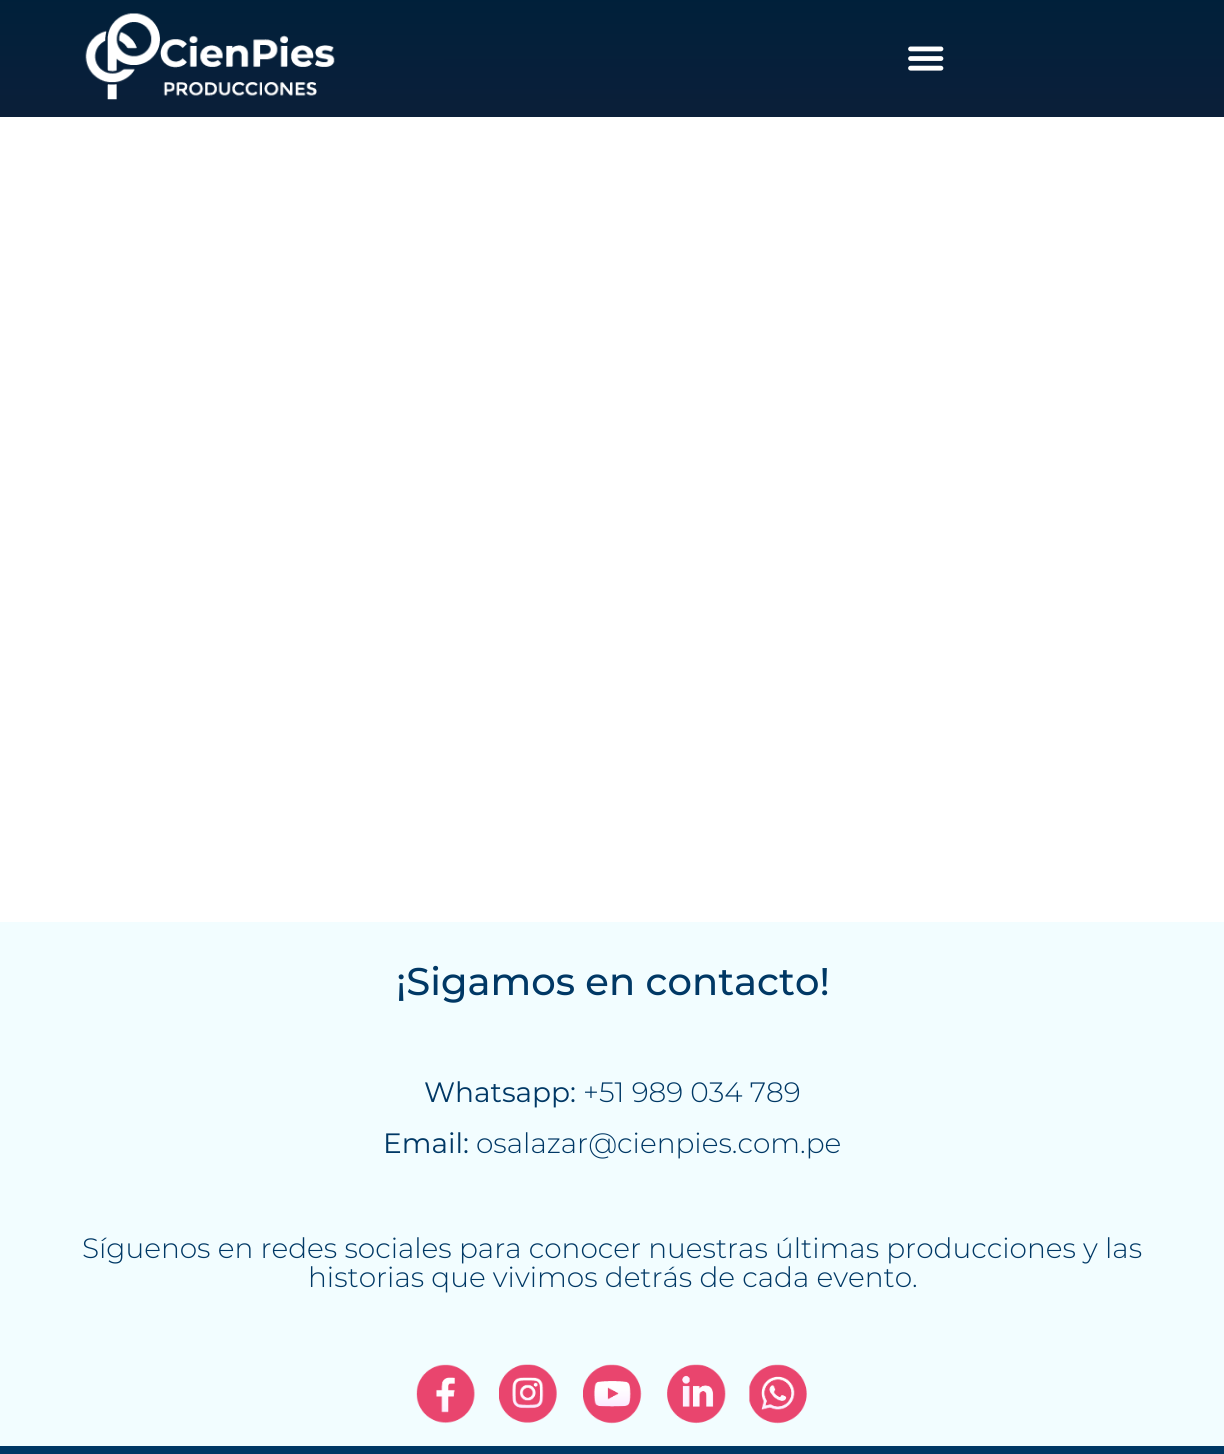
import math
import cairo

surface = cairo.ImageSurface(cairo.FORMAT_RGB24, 1224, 1454)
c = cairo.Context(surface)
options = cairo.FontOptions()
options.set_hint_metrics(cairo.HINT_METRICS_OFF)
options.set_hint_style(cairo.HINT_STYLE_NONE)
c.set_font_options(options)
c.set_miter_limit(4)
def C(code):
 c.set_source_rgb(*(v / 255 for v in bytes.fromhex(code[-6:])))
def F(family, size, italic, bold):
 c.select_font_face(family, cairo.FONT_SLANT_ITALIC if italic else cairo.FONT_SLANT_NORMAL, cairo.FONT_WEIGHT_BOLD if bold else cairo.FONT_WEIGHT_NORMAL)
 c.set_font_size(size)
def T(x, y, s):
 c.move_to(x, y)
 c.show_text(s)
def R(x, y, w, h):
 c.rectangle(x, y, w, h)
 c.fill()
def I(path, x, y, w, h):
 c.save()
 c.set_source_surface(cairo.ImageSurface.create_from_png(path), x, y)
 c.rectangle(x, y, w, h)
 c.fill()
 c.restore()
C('ffffff')
c.paint()
gradient = cairo.LinearGradient(612,-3.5,613,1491)
gradient.add_color_stop_rgba(0,0,0.125,0.227,1)
gradient.add_color_stop_rgba(1,0.541,0.09,0.204,1)
c.set_source(gradient)
R(0,0,1224,117)
I('1.png',85,13,250,87)
I('2.png',908,46,36,25)
C('f2fdff')
R(0,922,1224,524)
F('Montserrat Medium',38.5,0,0)
C('003865')
T(396,995,'¡Sigamos en contacto!')
F('Montserrat',28,0,0)
T(424,1102,'Whatsapp:')
F('Montserrat Light',28,0,0)
T(583,1102,'+51 989 034 789')
F('Montserrat',28,0,0)
T(383,1153,'Email:')
F('Montserrat Light',28,0,0)
T(476,1153,'osalazar@cienpies.com.pe')
T(82,1258,'Síguenos en redes sociales para conocer nuestras últimas producciones y las')
T(308,1287,'historias que vivimos detrás de cada evento.')
I('3.png',416,1364,59,60)
I('4.png',499,1364,58,59)
I('5.png',583,1364,59,60)
I('6.png',667,1364,59,60)
I('7.png',749,1364,58,60)
R(0,1446,1224,8)
surface.write_to_png('o.png')
